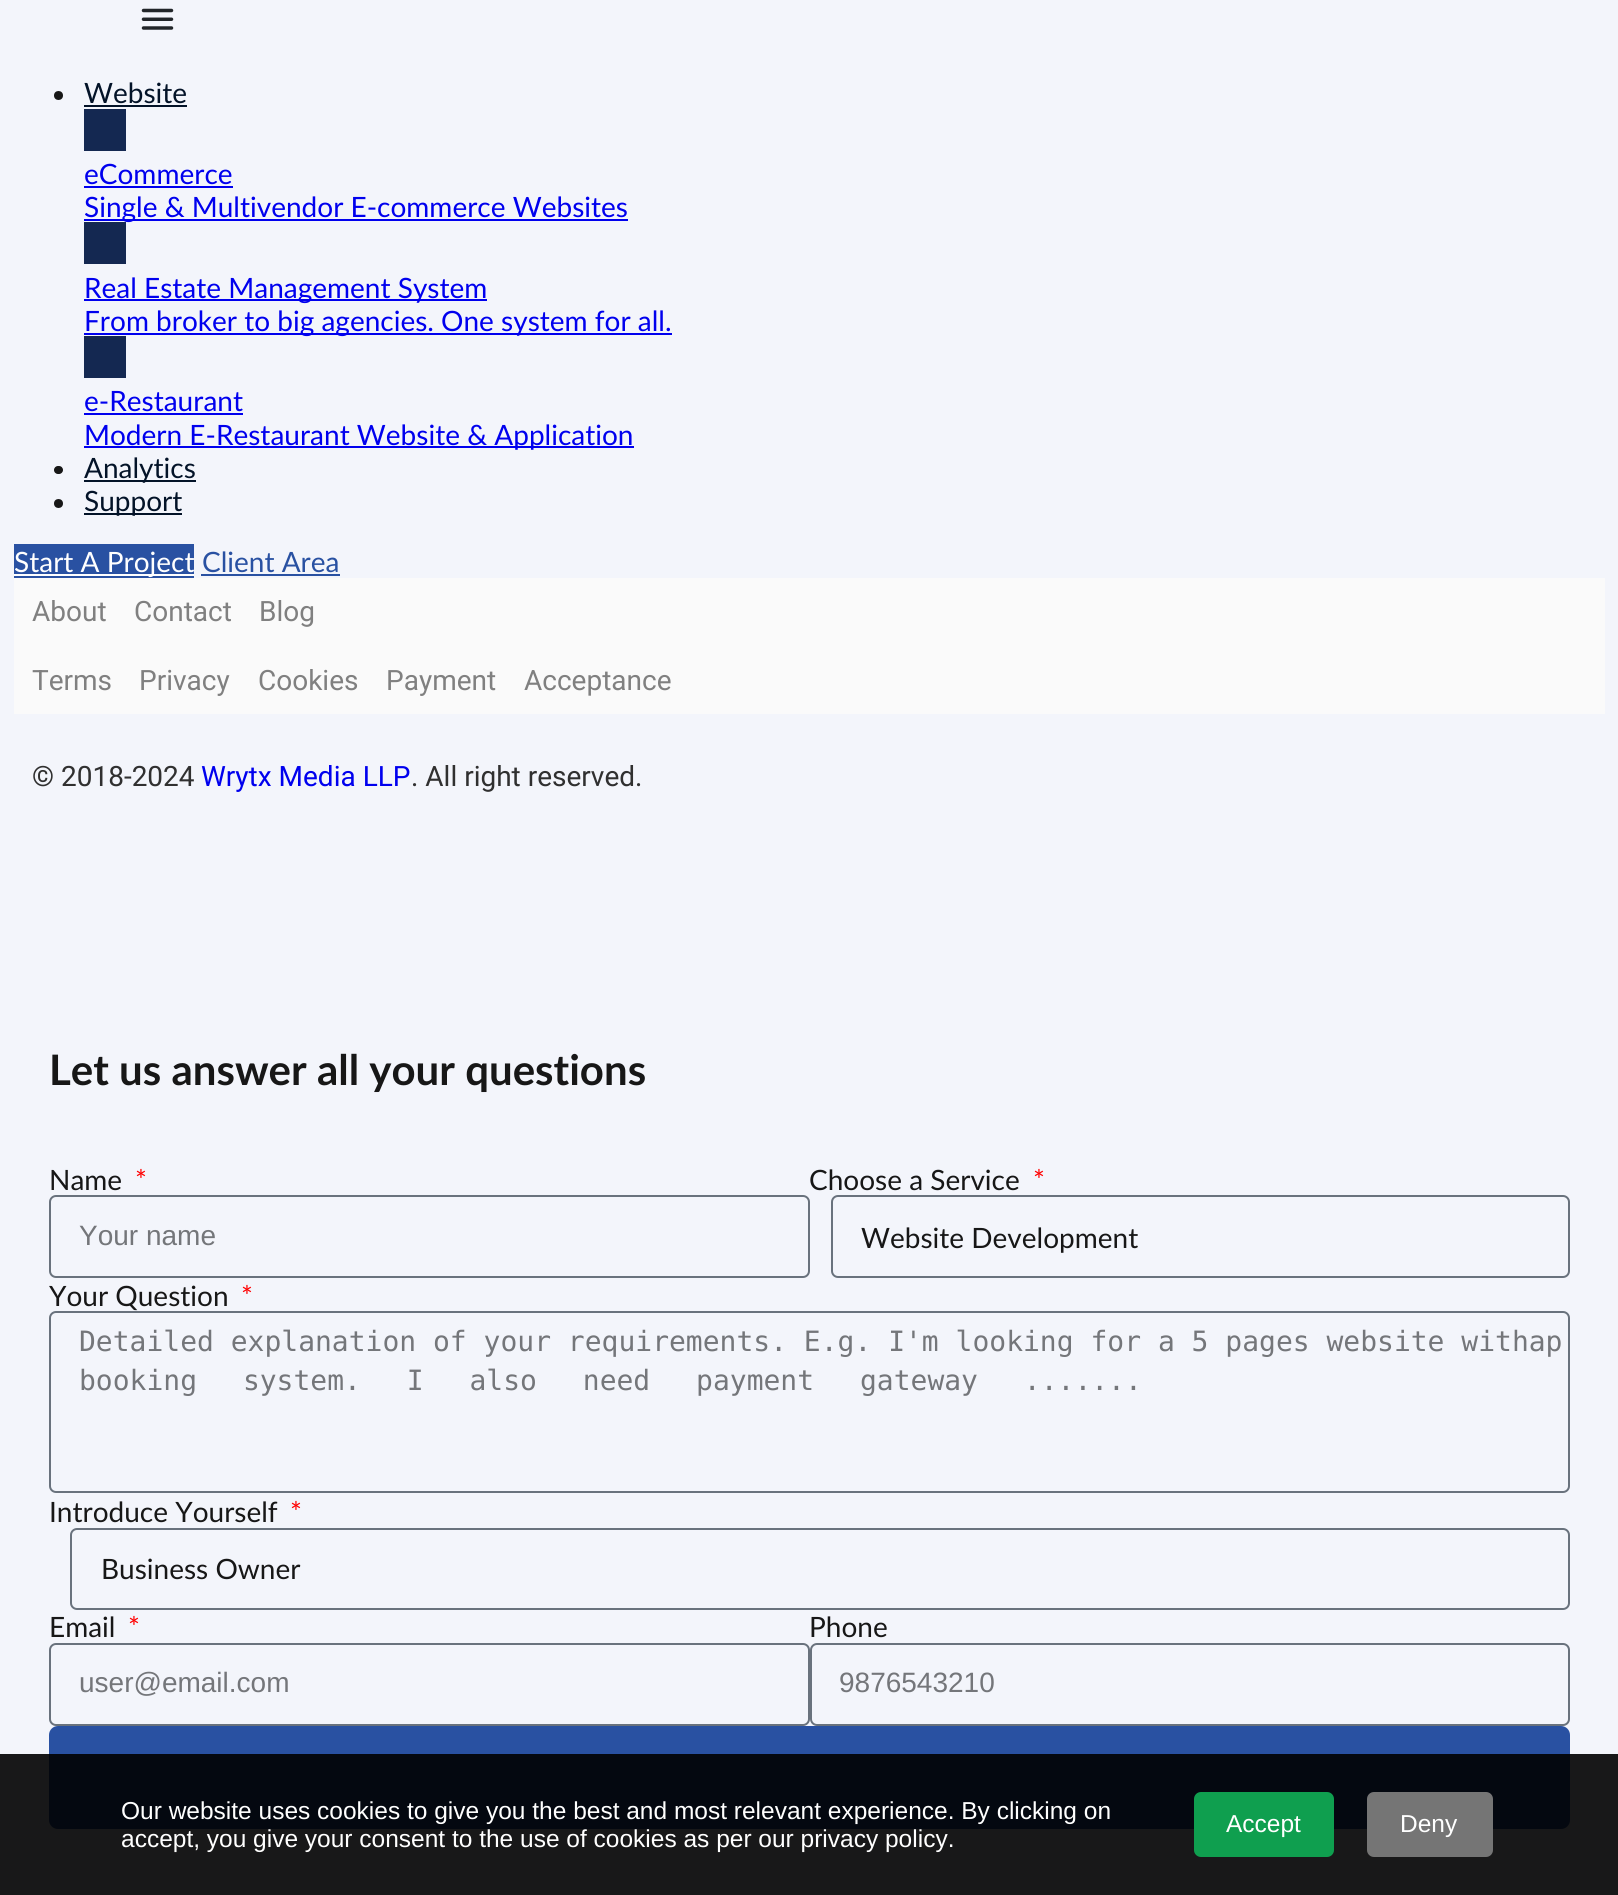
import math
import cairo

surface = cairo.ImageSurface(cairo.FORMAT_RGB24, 1618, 1895)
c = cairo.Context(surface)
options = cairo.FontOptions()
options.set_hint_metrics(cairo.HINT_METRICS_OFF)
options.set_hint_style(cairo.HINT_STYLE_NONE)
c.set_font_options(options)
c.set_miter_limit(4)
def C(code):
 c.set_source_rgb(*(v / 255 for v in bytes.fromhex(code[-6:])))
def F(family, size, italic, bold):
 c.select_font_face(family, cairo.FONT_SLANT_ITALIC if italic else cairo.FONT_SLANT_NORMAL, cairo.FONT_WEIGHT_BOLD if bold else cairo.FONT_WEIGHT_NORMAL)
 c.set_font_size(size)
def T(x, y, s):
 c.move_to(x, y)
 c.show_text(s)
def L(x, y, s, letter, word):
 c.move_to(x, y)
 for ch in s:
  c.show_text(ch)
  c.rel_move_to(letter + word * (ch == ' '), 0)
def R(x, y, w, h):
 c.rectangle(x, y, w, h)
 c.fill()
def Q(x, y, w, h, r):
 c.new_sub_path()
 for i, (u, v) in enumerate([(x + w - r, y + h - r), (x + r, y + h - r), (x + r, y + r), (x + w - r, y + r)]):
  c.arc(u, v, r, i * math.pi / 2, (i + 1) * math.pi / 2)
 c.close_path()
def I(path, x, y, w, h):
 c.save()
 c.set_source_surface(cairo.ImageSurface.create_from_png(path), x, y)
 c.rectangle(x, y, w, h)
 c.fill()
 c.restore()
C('f3f5fb')
c.paint()
I('1.png',141,8,33,22)
C('171717')
c.arc(58.5,95.5,4.5,0,2 * math.pi)
c.fill()
F('Lato',28,0,0)
C('031328')
T(84,103,'Website')
R(84,105,103,2)
C('142851')
R(84,109,42,42)
C('0000ee')
T(84,184,'eCommerce')
R(84,186,149,2)
R(84,219,544,2)
T(84,217,'Single & Multivendor E-commerce Websites')
C('142851')
R(84,222,42,42)
C('0000ee')
R(84,299,403,2)
T(84,298,'Real Estate Management System')
R(84,333,588,2)
T(84,331,'From broker to big agencies. One system for all.')
C('142851')
R(84,336,42,42)
C('0000ee')
T(84,411,'e-Restaurant')
R(84,413,159,2)
R(84,446,550,2)
T(84,445,'Modern E-Restaurant Website & Application')
C('171717')
Q(54,466,9,8,4)
c.fill()
C('031328')
R(84,480,112,2)
T(84,478,'Analytics')
C('171717')
c.new_path()
c.arc(58.5,503.5,4.5,0,2 * math.pi)
c.fill()
C('031328')
R(84,513,98,2)
T(84,511,'Support')
C('2951a2')
R(14,544,180,34)
C('ffffff')
R(14,574,180,2)
T(14,572,'Start A Project')
C('2951a2')
T(202,572,'Client Area')
R(201,574,139,2)
C('fafafa')
R(14,578,1591,136)
F('Roboto',28,0,0)
C('808080')
T(32,621,'About')
T(134,621,'Contact')
T(259,621,'Blog')
T(32,690,'Terms')
T(139,690,'Privacy')
T(258,690,'Cookies')
T(386,690,'Payment')
T(524,690,'Acceptance')
C('303030')
T(32,786,'© 2018-2024')
C('0000ee')
T(201,786,'Wrytx Media LLP')
C('303030')
T(411,786,'. All right reserved.')
F('Lato',42,0,1)
C('171717')
T(49,1085,'Let us answer all your questions')
F('Lato',28,0,0)
T(49,1190,'Name')
C('ff0000')
T(135,1190,'*')
Q(50,1196,759,81,6)
C('69727d')
c.stroke()
F('Liberation Sans',28,0,0)
C('74767a')
T(79,1245,'Your name')
F('Lato',28,0,0)
C('171717')
T(809,1190,'Choose a Service')
C('ff0000')
T(1033,1190,'*')
Q(832,1196,737,81,6)
C('69727d')
c.stroke()
C('171717')
T(861,1248,'Website Development')
T(49,1306,'Your Question')
C('ff0000')
T(241,1306,'*')
Q(50,1312,1519,180,6)
C('69727d')
c.stroke()
F('DejaVu Sans Mono',28,0,0)
C('74767a')
T(79,1351,'Detailed explanation of your requirements. E.g. I\'m looking for a 5 pages website withap')
L(79,1390,'booking system. I also need payment gateway .......',0,29)
F('Lato',28,0,0)
C('171717')
T(49,1522,'Introduce Yourself')
C('ff0000')
T(290,1522,'*')
Q(71,1529,1498,80,6)
C('69727d')
c.stroke()
C('171717')
T(101,1579,'Business Owner')
T(49,1637,'Email')
C('ff0000')
T(128,1637,'*')
Q(50,1644,759,81,6)
C('69727d')
c.stroke()
F('Liberation Sans',28,0,0)
C('74767a')
T(79,1692,'user@email.com')
F('Lato',28,0,0)
C('171717')
T(809,1637,'Phone')
Q(811,1644,758,81,6)
C('69727d')
c.stroke()
F('Liberation Sans',28,0,0)
C('74767a')
T(839,1692,'9876543210')
C('2951a2')
Q(49,1726,1521,103,9)
c.fill()
c.set_source_rgba(0,0,0,0.9)
R(0,1754,1618,141)
F('Liberation Sans',24.5,0,0)
C('ffffff')
T(121,1819,'Our website uses cookies to give you the best and most relevant experience. By clicking on')
T(121,1847,'accept, you give your consent to the use of cookies as per our privacy policy.')
C('0f9f4f')
Q(1194,1792,140,65,7)
c.fill()
C('ffffff')
T(1226,1832,'Accept')
C('757575')
Q(1367,1792,126,65,7)
c.fill()
C('ffffff')
T(1400,1832,'Deny')
surface.write_to_png('o.png')
